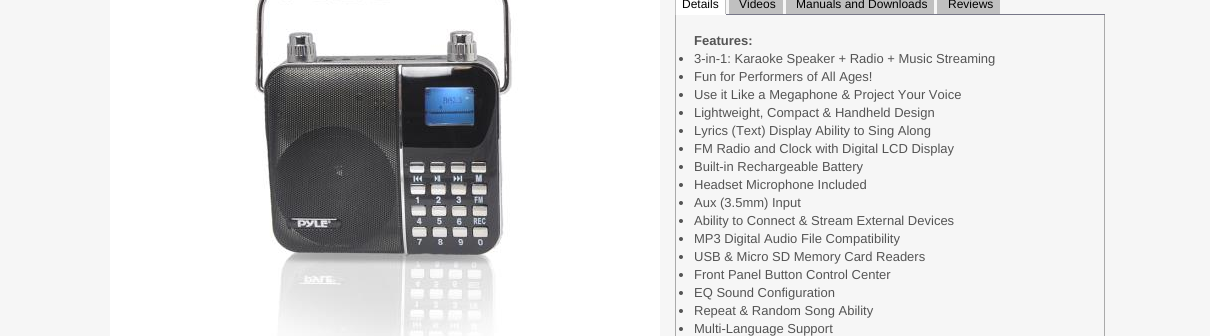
import math
import cairo

surface = cairo.ImageSurface(cairo.FORMAT_RGB24, 1210, 336)
c = cairo.Context(surface)
options = cairo.FontOptions()
options.set_hint_metrics(cairo.HINT_METRICS_OFF)
options.set_hint_style(cairo.HINT_STYLE_NONE)
c.set_font_options(options)
c.set_miter_limit(4)
def C(code):
 c.set_source_rgb(*(v / 255 for v in bytes.fromhex(code[-6:])))
def F(family, size, italic, bold):
 c.select_font_face(family, cairo.FONT_SLANT_ITALIC if italic else cairo.FONT_SLANT_NORMAL, cairo.FONT_WEIGHT_BOLD if bold else cairo.FONT_WEIGHT_NORMAL)
 c.set_font_size(size)
def T(x, y, s):
 c.move_to(x, y)
 c.show_text(s)
def R(x, y, w, h):
 c.rectangle(x, y, w, h)
 c.fill()
def I(path, x, y, w, h):
 c.save()
 c.set_source_surface(cairo.ImageSurface.create_from_png(path), x, y)
 c.rectangle(x, y, w, h)
 c.fill()
 c.restore()
C('f6f6f6')
c.paint()
I('1.png',110,0,550,336)
C('777788')
R(726,14,379,1)
C('ffffff')
R(676,0,49,14)
F('Liberation Sans',12,0,0)
C('000000')
T(682,8,'Details')
C('c0c0c0')
R(725,0,1,15)
C('ffffff')
R(675,14,51,1)
C('c0c0c0')
R(675,0,1,15)
R(729,0,54,14)
C('000000')
T(739,8,'Videos')
C('c0c0c0')
R(786,0,148,14)
C('000000')
T(796,8,'Manuals and Downloads')
C('c0c0c0')
R(937,0,63,14)
C('000000')
T(948,8,'Reviews')
C('aaaaaa')
R(1104,15,1,321)
R(675,15,1,321)
F('Liberation Sans',13,0,1)
C('545454')
T(694,45,'Features:')
c.new_path()
c.arc(681,59,2,0,2 * math.pi)
c.fill()
F('Liberation Sans',13,0,0)
T(694,63,'3-in-1: Karaoke Speaker + Radio + Music Streaming')
c.new_path()
c.arc(681,77,2,0,2 * math.pi)
c.fill()
T(694,81,'Fun for Performers of All Ages!')
c.new_path()
c.arc(681,95,2,0,2 * math.pi)
c.fill()
T(694,99,'Use it Like a Megaphone & Project Your Voice')
c.new_path()
c.arc(681,113,2,0,2 * math.pi)
c.fill()
T(694,117,'Lightweight, Compact & Handheld Design')
c.new_path()
c.arc(681,131,2,0,2 * math.pi)
c.fill()
T(694,135,'Lyrics (Text) Display Ability to Sing Along')
c.new_path()
c.arc(681,149,2,0,2 * math.pi)
c.fill()
T(694,153,'FM Radio and Clock with Digital LCD Display')
c.new_path()
c.arc(681,167,2,0,2 * math.pi)
c.fill()
T(694,171,'Built-in Rechargeable Battery')
c.new_path()
c.arc(681,185,2,0,2 * math.pi)
c.fill()
T(694,189,'Headset Microphone Included')
c.new_path()
c.arc(681,203,2,0,2 * math.pi)
c.fill()
T(694,207,'Aux (3.5mm) Input')
c.new_path()
c.arc(681,221,2,0,2 * math.pi)
c.fill()
T(694,225,'Ability to Connect & Stream External Devices')
c.new_path()
c.arc(681,239,2,0,2 * math.pi)
c.fill()
T(694,243,'MP3 Digital Audio File Compatibility')
c.new_path()
c.arc(681,257,2,0,2 * math.pi)
c.fill()
T(694,261,'USB & Micro SD Memory Card Readers')
c.new_path()
c.arc(681,275,2,0,2 * math.pi)
c.fill()
T(694,279,'Front Panel Button Control Center')
c.new_path()
c.arc(681,293,2,0,2 * math.pi)
c.fill()
T(694,297,'EQ Sound Configuration')
c.new_path()
c.arc(681,311,2,0,2 * math.pi)
c.fill()
T(694,315,'Repeat & Random Song Ability')
c.new_path()
c.arc(681,329,2,0,2 * math.pi)
c.fill()
T(694,333,'Multi-Language Support')
surface.write_to_png('o.png')
